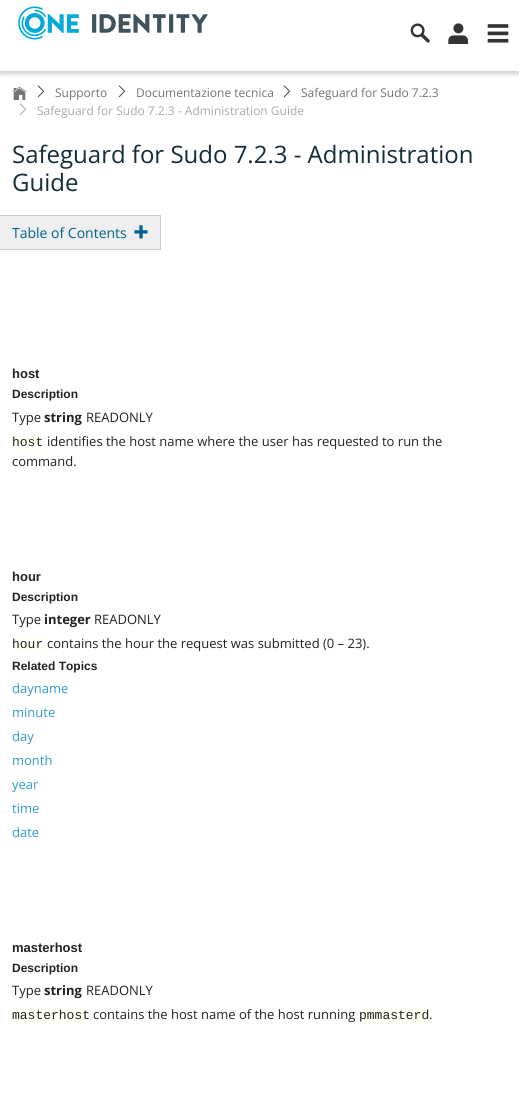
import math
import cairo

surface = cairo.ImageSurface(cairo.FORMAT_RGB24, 519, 1109)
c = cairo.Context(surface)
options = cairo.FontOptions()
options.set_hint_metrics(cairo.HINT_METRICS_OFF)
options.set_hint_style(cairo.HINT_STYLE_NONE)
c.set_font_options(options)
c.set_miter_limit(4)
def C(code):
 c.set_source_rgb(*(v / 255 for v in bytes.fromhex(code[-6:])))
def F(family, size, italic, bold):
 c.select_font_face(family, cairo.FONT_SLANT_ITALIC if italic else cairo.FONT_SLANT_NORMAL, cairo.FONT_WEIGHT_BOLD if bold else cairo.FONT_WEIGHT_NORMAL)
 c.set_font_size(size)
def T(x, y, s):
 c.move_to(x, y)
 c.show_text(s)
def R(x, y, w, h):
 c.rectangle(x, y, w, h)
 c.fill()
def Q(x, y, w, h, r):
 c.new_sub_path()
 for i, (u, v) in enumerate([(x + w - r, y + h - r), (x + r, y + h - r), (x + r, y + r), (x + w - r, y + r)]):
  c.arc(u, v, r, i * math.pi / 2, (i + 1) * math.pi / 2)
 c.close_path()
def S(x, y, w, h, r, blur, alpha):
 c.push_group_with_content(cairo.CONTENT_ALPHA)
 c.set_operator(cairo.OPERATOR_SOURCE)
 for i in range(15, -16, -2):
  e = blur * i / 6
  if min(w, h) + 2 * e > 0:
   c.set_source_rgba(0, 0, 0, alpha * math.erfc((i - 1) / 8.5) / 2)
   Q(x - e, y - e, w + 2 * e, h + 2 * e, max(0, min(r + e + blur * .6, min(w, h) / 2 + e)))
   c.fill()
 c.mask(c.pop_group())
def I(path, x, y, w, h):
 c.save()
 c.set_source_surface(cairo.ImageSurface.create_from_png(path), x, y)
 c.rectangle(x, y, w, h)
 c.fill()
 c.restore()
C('ffffff')
c.paint()
c.save()
c.rectangle(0,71,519,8)
c.clip()
C('cdcdcd')
S(0,2,519,72,0,2.5,1)
c.restore()
I('1.png',18,6,190,34)
I('2.png',410,23,20,20)
I('3.png',448,23,20,21)
I('4.png',487,24,22,19)
I('5.png',12,86,15,14)
I('6.png',37,85,8,13)
F('Open Sans',12,0,0)
C('737373')
T(55,97,'Supporto')
I('6.png',118,85,8,13)
T(136,97,'Documentazione tecnica')
I('6.png',283,85,8,13)
T(301,97,'Safeguard for Sudo 7.2.3')
I('7.png',19,103,7,13)
C('aaaaaa')
T(37,115,'Safeguard for Sudo 7.2.3 - Administration Guide')
F('Open Sans',24,0,0)
C('162c36')
T(12,163,'Safeguard for Sudo 7.2.3 - Administration')
T(12,191,'Guide')
C('eeeeee')
c.rectangle(-.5,215.5,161,34)
c.fill_preserve()
C('cccccc')
c.set_line_width(1)
c.stroke()
F('Open Sans',14,0,0)
C('00618f')
T(12,238,'Table of Contents')
I('8.png',134,225,14,14)
F('Liberation Sans',13,0,1)
C('222222')
T(12,378,'host')
F('Liberation Sans',12,0,1)
T(12,398,'Description')
F('Open Sans',13,0,0)
T(12,422,'Type')
F('Open Sans',13,0,1)
T(44,422,'string')
F('Open Sans',13,0,0)
T(86,422,'READONLY')
C('fffff6')
R(12,435,31,15)
F('Liberation Mono',13,0,0)
C('222222')
T(12,446,'host')
F('Open Sans',13,0,0)
T(47,446,'identifies the host name where the user has requested to run the')
T(12,466,'command.')
F('Liberation Sans',13,0,1)
T(12,581,'hour')
F('Liberation Sans',12,0,1)
T(12,601,'Description')
F('Open Sans',13,0,0)
T(12,624,'Type')
F('Open Sans',13,0,1)
T(44,624,'integer')
F('Open Sans',13,0,0)
T(94,624,'READONLY')
C('fffff6')
R(12,637,31,15)
F('Liberation Mono',13,0,0)
C('222222')
T(12,648,'hour')
F('Open Sans',13,0,0)
T(47,648,'contains the hour the request was submitted (0 – 23).')
F('Liberation Sans',12,0,1)
T(12,670,'Related Topics')
F('Open Sans',13,0,0)
C('3399cc')
T(12,693,'dayname')
T(12,717,'minute')
T(12,741,'day')
T(12,765,'month')
T(12,789,'year')
T(12,813,'time')
T(12,837,'date')
F('Liberation Sans',13,0,1)
C('222222')
T(12,952,'masterhost')
F('Liberation Sans',12,0,1)
T(12,972,'Description')
F('Open Sans',13,0,0)
T(12,995,'Type')
F('Open Sans',13,0,1)
T(44,995,'string')
F('Open Sans',13,0,0)
T(86,995,'READONLY')
C('fffff6')
R(12,1008,78,15)
F('Liberation Mono',13,0,0)
C('222222')
T(12,1019,'masterhost')
F('Open Sans',13,0,0)
T(93,1019,'contains the host name of the host running')
C('fffff6')
R(359,1008,70,15)
F('Liberation Mono',13,0,0)
C('222222')
T(359,1019,'pmmasterd')
F('Open Sans',13,0,0)
T(429,1019,'.')
surface.write_to_png('o.png')
